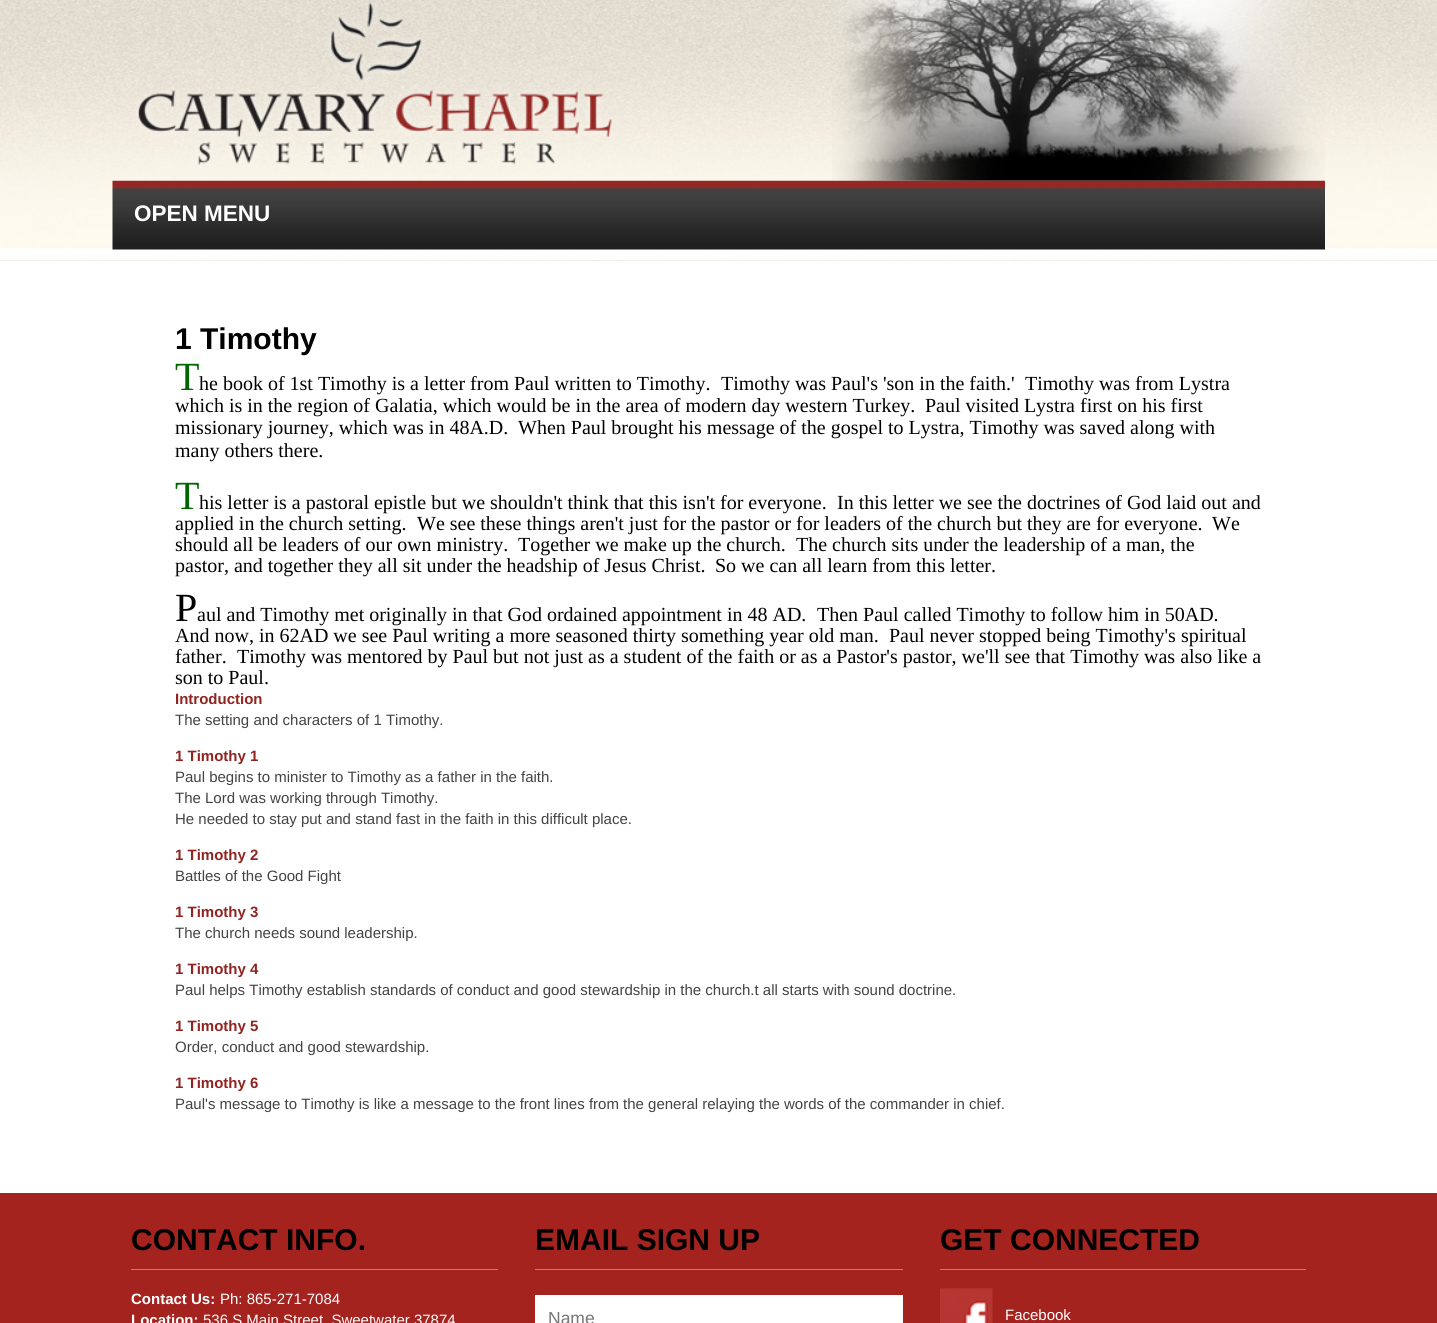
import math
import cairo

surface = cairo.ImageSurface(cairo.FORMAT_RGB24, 1437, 1323)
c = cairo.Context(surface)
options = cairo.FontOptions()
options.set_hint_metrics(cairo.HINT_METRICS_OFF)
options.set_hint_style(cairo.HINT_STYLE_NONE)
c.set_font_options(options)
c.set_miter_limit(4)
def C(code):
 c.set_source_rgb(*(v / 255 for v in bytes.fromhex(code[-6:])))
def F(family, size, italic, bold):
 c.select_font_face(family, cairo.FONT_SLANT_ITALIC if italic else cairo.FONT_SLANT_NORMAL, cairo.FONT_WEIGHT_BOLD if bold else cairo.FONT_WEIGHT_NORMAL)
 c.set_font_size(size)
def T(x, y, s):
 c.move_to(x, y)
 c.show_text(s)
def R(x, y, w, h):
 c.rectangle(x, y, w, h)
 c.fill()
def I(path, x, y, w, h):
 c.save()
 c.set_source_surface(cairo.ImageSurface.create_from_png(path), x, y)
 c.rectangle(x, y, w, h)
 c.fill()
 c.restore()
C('a4231f')
c.paint()
I('1.png',0,0,1437,261)
I('2.png',832,0,493,181)
I('3.png',135,3,477,162)
I('4.png',112,180,1213,70)
F('Liberation Sans',22.5,0,1)
C('ffffff')
T(134,221,'OPEN MENU')
R(0,261,1437,932)
F('Liberation Sans',30,0,1)
C('000000')
T(175,349,'1 Timothy')
F('Liberation Serif',40,0,0)
C('006400')
T(175,390,'T')
F('Liberation Serif',20,0,0)
C('000000')
T(199,390,'he book of 1st Timothy is a letter from Paul written to Timothy.')
T(721,390,'Timothy was Paul\'s \'son in the faith.\'')
T(1025,390,'Timothy was from Lystra')
T(175,412,'which is in the region of Galatia, which would be in the area of modern day western Turkey.')
T(925,412,'Paul visited Lystra first on his first')
T(175,434,'missionary journey, which was in 48A.D.')
T(518,434,'When Paul brought his message of the gospel to Lystra, Timothy was saved along with')
T(175,457,'many others there.')
F('Liberation Serif',40,0,0)
C('006400')
T(175,509,'T')
F('Liberation Serif',20,0,0)
C('000000')
T(199,509,'his letter is a pastoral epistle but we shouldn\'t think that this isn\'t for everyone.')
T(837,509,'In this letter we see the doctrines of God laid out and')
T(175,530,'applied in the church setting.')
T(417,530,'We see these things aren\'t just for the pastor or for leaders of the church but they are for everyone.')
T(1212,530,'We')
T(175,551,'should all be leaders of our own ministry.')
T(518,551,'Together we make up the church.')
T(796,551,'The church sits under the leadership of a man, the')
T(175,572,'pastor, and together they all sit under the headship of Jesus Christ.')
T(715,572,'So we can all learn from this letter.')
F('Liberation Serif',40,0,0)
T(175,621,'P')
F('Liberation Serif',20,0,0)
T(197,621,'aul and Timothy met originally in that God ordained appointment in 48 AD.')
T(817,621,'Then Paul called Timothy to follow him in 50AD.')
T(175,642,'And now, in 62AD we see Paul writing a more seasoned thirty something year old man.')
T(889,642,'Paul never stopped being Timothy\'s spiritual')
T(175,663,'father.')
T(237,663,'Timothy was mentored by Paul but not just as a student of the faith or as a Pastor\'s pastor, we\'ll see that Timothy was also like a')
T(175,684,'son to Paul.')
F('Liberation Sans',15,0,1)
C('902420')
T(175,704,'Introduction')
F('Liberation Sans',15,0,0)
C('434343')
T(175,725,'The setting and characters of 1 Timothy.')
F('Liberation Sans',15,0,1)
C('902420')
T(175,761,'1 Timothy 1')
F('Liberation Sans',15,0,0)
C('434343')
T(175,782,'Paul begins to minister to Timothy as a father in the faith.')
T(175,803,'The Lord was working through Timothy.')
T(175,824,'He needed to stay put and stand fast in the faith in this difficult place.')
F('Liberation Sans',15,0,1)
C('902420')
T(175,860,'1 Timothy 2')
F('Liberation Sans',15,0,0)
C('434343')
T(175,881,'Battles of the Good Fight')
F('Liberation Sans',15,0,1)
C('902420')
T(175,917,'1 Timothy 3')
F('Liberation Sans',15,0,0)
C('434343')
T(175,938,'The church needs sound leadership.')
F('Liberation Sans',15,0,1)
C('902420')
T(175,974,'1 Timothy 4')
F('Liberation Sans',15,0,0)
C('434343')
T(175,995,'Paul helps Timothy establish standards of conduct and good stewardship in the church.t all starts with sound doctrine.')
F('Liberation Sans',15,0,1)
C('902420')
T(175,1031,'1 Timothy 5')
F('Liberation Sans',15,0,0)
C('434343')
T(175,1052,'Order, conduct and good stewardship.')
F('Liberation Sans',15,0,1)
C('902420')
T(175,1088,'1 Timothy 6')
F('Liberation Sans',15,0,0)
C('434343')
T(175,1109,'Paul\'s message to Timothy is like a message to the front lines from the general relaying the words of the commander in chief.')
C('c67b79')
R(131,1269,367,1)
F('Liberation Sans',30,0,1)
C('000000')
T(131,1250,'CONTACT INFO.')
F('Liberation Sans',15,0,1)
C('ffffff')
T(131,1304,'Contact Us:')
F('Liberation Sans',15,0,0)
T(220,1304,'Ph: 865-271-7084')
F('Liberation Sans',15,0,1)
T(131,1325,'Location:')
F('Liberation Sans',15,0,0)
T(203,1325,'536 S Main Street, Sweetwater 37874')
C('c67b79')
R(535,1269,368,1)
F('Liberation Sans',30,0,1)
C('000000')
T(535,1250,'EMAIL SIGN UP')
C('ffffff')
R(535,1295,368,28)
F('Liberation Sans',17.5,0,0)
C('757575')
T(548,1324,'Name')
C('c67b79')
R(940,1269,366,1)
F('Liberation Sans',30,0,1)
C('000000')
T(940,1250,'GET CONNECTED')
I('5.png',940,1288,53,35)
F('Liberation Sans',15,0,0)
C('ffffff')
T(1005,1320,'Facebook')
surface.write_to_png('o.png')
